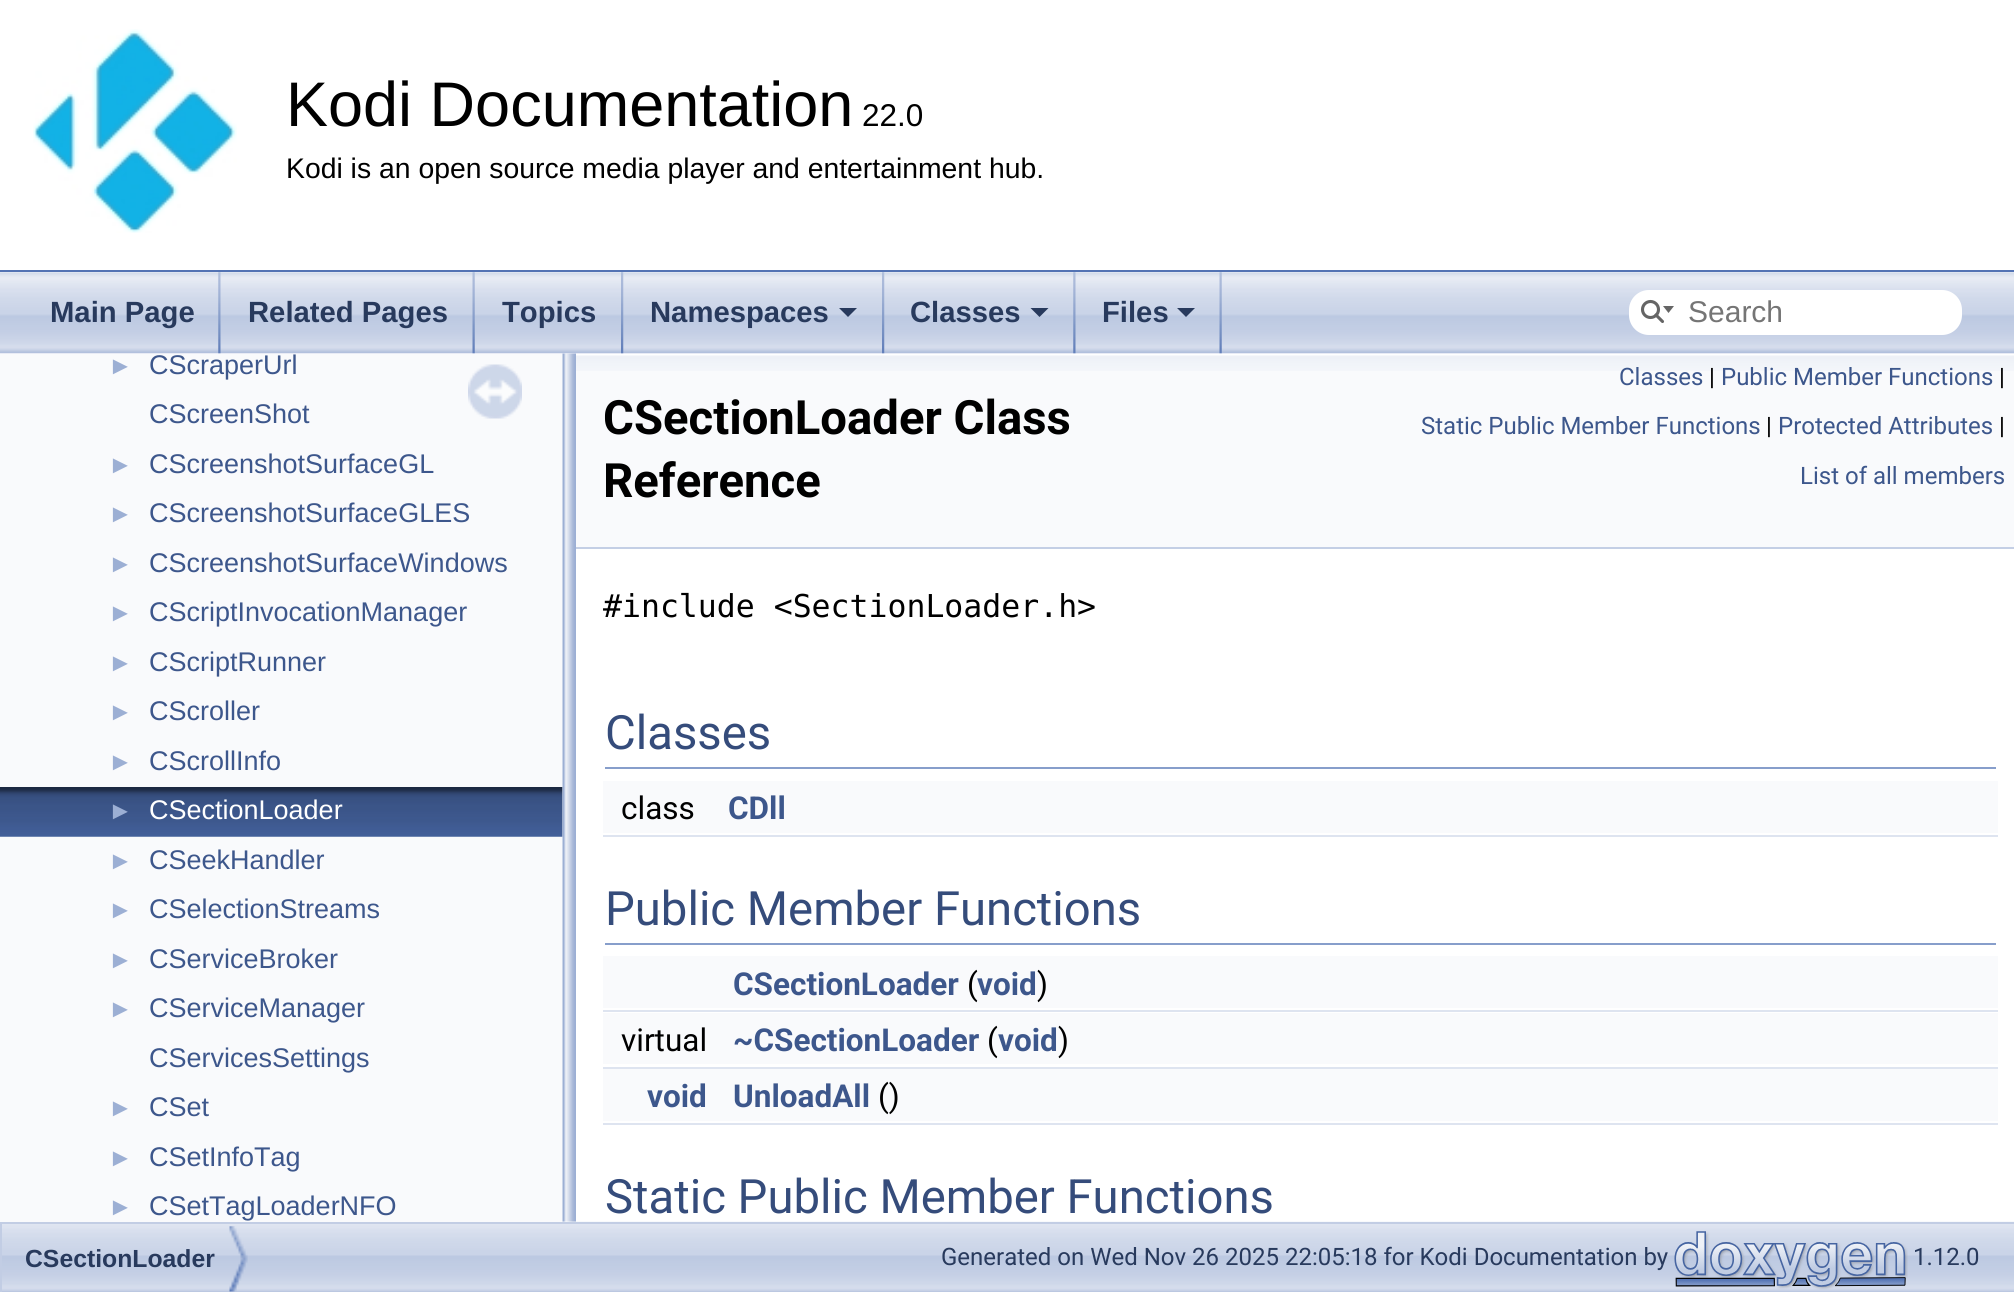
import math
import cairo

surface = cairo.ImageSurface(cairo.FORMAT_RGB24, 2014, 1292)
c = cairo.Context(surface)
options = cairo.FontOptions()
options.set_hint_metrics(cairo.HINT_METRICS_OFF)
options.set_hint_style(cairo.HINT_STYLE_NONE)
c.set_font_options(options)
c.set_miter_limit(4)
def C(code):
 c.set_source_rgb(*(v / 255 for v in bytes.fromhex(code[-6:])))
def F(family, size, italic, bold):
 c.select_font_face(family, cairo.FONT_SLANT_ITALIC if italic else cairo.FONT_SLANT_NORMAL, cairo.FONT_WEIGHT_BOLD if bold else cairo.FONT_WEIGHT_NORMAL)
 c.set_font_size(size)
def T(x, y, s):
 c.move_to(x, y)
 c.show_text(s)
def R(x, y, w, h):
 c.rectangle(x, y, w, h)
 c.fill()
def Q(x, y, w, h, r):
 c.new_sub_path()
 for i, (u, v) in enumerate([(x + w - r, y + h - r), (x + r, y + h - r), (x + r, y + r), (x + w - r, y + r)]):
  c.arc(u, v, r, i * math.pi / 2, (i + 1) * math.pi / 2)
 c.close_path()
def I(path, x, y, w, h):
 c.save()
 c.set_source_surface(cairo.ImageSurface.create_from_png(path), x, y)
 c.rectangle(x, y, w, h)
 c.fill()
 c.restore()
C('ffffff')
c.paint()
C('5373b4')
R(0,270,2014,2)
I('1.png',33,29,204,204)
F('Liberation Sans',63,0,0)
C('000000')
T(286,126,'Kodi Documentation')
F('Liberation Sans',31.5,0,0)
T(862,126,'22.0')
F('Liberation Sans',28.35,0,0)
T(286,178,'Kodi is an open source media player and entertainment hub.')
I('10.png',2,1221,2012,71)
C('f9fafc')
R(0,353,563,869)
I('6.png',0,787,563,50)
I('8.png',562,353,14,869)
R(576,353,1438,194)
I('2.png',0,272,2014,82)
I('3.png',218,272,3,82)
F('Liberation Sans',29.25,0,1)
C('283a5d')
T(50,322,'Main Page')
I('4.png',472,272,3,82)
T(248,322,'Related Pages')
I('5.png',621,272,3,82)
T(502,322,'Topics')
I('5.png',882,272,3,82)
T(650,322,'Namespaces')
c.new_path()
c.move_to(839,308)
c.line_to(857,308)
c.line_to(848,317)
c.close_path()
c.fill()
I('3.png',1073,272,3,82)
T(910,322,'Classes')
c.new_path()
c.move_to(1030.5,308)
c.line_to(1048.5,308)
c.line_to(1039.5,317)
c.close_path()
c.fill()
I('4.png',1219,272,3,82)
T(1102,322,'Files')
c.new_path()
c.move_to(1177,308)
c.line_to(1195,308)
c.line_to(1186,317)
c.close_path()
c.fill()
C('ffffff')
Q(1629,290,333,45,20)
c.fill()
c.arc(1650.5,309.5,8,0,2 * math.pi)
C('656565')
c.set_line_width(3.1)
c.stroke()
c.new_path()
c.move_to(1663,306)
c.line_to(1668.5,313)
c.line_to(1674,306)
c.close_path()
c.fill()
c.new_path()
c.move_to(1656,315)
c.line_to(1662.5,321.5)
c.set_line_cap(cairo.LINE_CAP_ROUND)
c.stroke()
F('Liberation Sans',30,0,0)
C('757575')
T(1688,322,'Search')
F('Liberation Sans',25,0,0)
C('9cafd4')
T(108,374,'►')
F('Liberation Sans',27,0,0)
C('3d578c')
T(149,374,'CScraperUrl')
T(149,423,'CScreenShot')
F('Liberation Sans',25,0,0)
C('9cafd4')
T(108,473,'►')
F('Liberation Sans',27,0,0)
C('3d578c')
T(149,473,'CScreenshotSurfaceGL')
F('Liberation Sans',25,0,0)
C('9cafd4')
T(108,522,'►')
F('Liberation Sans',27,0,0)
C('3d578c')
T(149,522,'CScreenshotSurfaceGLES')
F('Liberation Sans',25,0,0)
C('9cafd4')
T(108,572,'►')
F('Liberation Sans',27,0,0)
C('3d578c')
T(149,572,'CScreenshotSurfaceWindows')
F('Liberation Sans',25,0,0)
C('9cafd4')
T(108,621,'►')
F('Liberation Sans',27,0,0)
C('3d578c')
T(149,621,'CScriptInvocationManager')
F('Liberation Sans',25,0,0)
C('9cafd4')
T(108,671,'►')
F('Liberation Sans',27,0,0)
C('3d578c')
T(149,671,'CScriptRunner')
F('Liberation Sans',25,0,0)
C('9cafd4')
T(108,720,'►')
F('Liberation Sans',27,0,0)
C('3d578c')
T(149,720,'CScroller')
F('Liberation Sans',25,0,0)
C('9cafd4')
T(108,770,'►')
F('Liberation Sans',27,0,0)
C('3d578c')
T(149,770,'CScrollInfo')
F('Liberation Sans',25,0,0)
C('9cafd4')
T(108,819,'►')
F('Liberation Sans',27,0,0)
C('ffffff')
T(149,819,'CSectionLoader')
F('Liberation Sans',25,0,0)
C('9cafd4')
T(108,869,'►')
F('Liberation Sans',27,0,0)
C('3d578c')
T(149,869,'CSeekHandler')
F('Liberation Sans',25,0,0)
C('9cafd4')
T(108,918,'►')
F('Liberation Sans',27,0,0)
C('3d578c')
T(149,918,'CSelectionStreams')
F('Liberation Sans',25,0,0)
C('9cafd4')
T(108,968,'►')
F('Liberation Sans',27,0,0)
C('3d578c')
T(149,968,'CServiceBroker')
F('Liberation Sans',25,0,0)
C('9cafd4')
T(108,1017,'►')
F('Liberation Sans',27,0,0)
C('3d578c')
T(149,1017,'CServiceManager')
T(149,1067,'CServicesSettings')
F('Liberation Sans',25,0,0)
C('9cafd4')
T(108,1116,'►')
F('Liberation Sans',27,0,0)
C('3d578c')
T(149,1116,'CSet')
F('Liberation Sans',25,0,0)
C('9cafd4')
T(108,1166,'►')
F('Liberation Sans',27,0,0)
C('3d578c')
T(149,1166,'CSetInfoTag')
F('Liberation Sans',25,0,0)
C('9cafd4')
T(108,1215,'►')
F('Liberation Sans',27,0,0)
C('3d578c')
T(149,1215,'CSetTagLoaderNFO')
I('7.png',468,364,54,55)
I('9.png',576,354,1438,17)
C('c4cfe5')
R(576,547,1438,2)
F('Roboto',47.25,0,1)
C('000000')
T(603,434,'CSectionLoader Class')
T(603,497,'Reference')
F('Roboto',24,0,0)
C('3d578c')
T(1619,385,'Classes')
C('000000')
T(1709,385,'|')
C('3d578c')
T(1721,385,'Public Member Functions')
C('000000')
T(1999,385,'|')
C('3d578c')
T(1421,434,'Static Public Member Functions')
C('000000')
T(1766,434,'|')
C('3d578c')
T(1778,434,'Protected Attributes')
C('000000')
T(1999,434,'|')
C('3d578c')
T(1800,484,'List of all members')
F('DejaVu Sans Mono',31.5,0,0)
C('000000')
T(603,617,'#include <SectionLoader.h>')
C('879ecb')
R(605,767,1391,2)
F('Roboto',47.25,0,0)
C('354c7b')
T(605,749,'Classes')
C('f9fafc')
R(603,781,1395,52)
F('Roboto',31.5,0,0)
C('000000')
T(621,819,'class')
F('Roboto',31.5,0,1)
C('3d578c')
T(728,819,'CDll')
C('dee4f0')
R(603,835,1395,2)
C('879ecb')
R(605,943,1391,2)
F('Roboto',47.25,0,0)
C('354c7b')
T(605,925,'Public Member Functions')
C('f9fafc')
R(603,956,1395,52)
F('Roboto',31.5,0,1)
C('3d578c')
T(733,995,'CSectionLoader')
F('Roboto',31.5,0,0)
C('000000')
T(967,995,'(')
F('Roboto',31.5,0,1)
C('3d578c')
T(977,995,'void')
F('Roboto',31.5,0,0)
C('000000')
T(1037,995,')')
C('dee4f0')
R(603,1010,1395,2)
C('f9fafc')
R(603,1013,1395,51)
C('000000')
T(621,1051,'virtual')
F('Roboto',31.5,0,1)
C('3d578c')
T(733,1051,'~CSectionLoader')
F('Roboto',31.5,0,0)
C('000000')
T(987,1051,'(')
F('Roboto',31.5,0,1)
C('3d578c')
T(998,1051,'void')
F('Roboto',31.5,0,0)
C('000000')
T(1058,1051,')')
C('dee4f0')
R(603,1067,1395,2)
C('f9fafc')
R(603,1069,1395,52)
F('Roboto',31.5,0,1)
C('3d578c')
T(647,1107,'void')
T(733,1107,'UnloadAll')
F('Roboto',31.5,0,0)
C('000000')
T(878,1107,'()')
C('dee4f0')
R(603,1123,1395,2)
F('Roboto',47.25,0,0)
C('354c7b')
T(605,1213,'Static Public Member Functions')
c.rectangle(1,1223,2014,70)
C('c2cde4')
c.set_line_width(2)
c.set_line_cap(cairo.LINE_CAP_BUTT)
c.stroke()
I('11.png',229,1226,19,66)
F('Liberation Sans',24.75,0,1)
C('283a5d')
T(25,1267,'CSectionLoader')
F('Roboto',24,0,0)
T(941,1265,'Generated on Wed Nov 26 2025 22:05:18 for Kodi Documentation by')
I('12.png',1674,1231,234,59)
T(1913,1265,'1.12.0')
surface.write_to_png('o.png')
